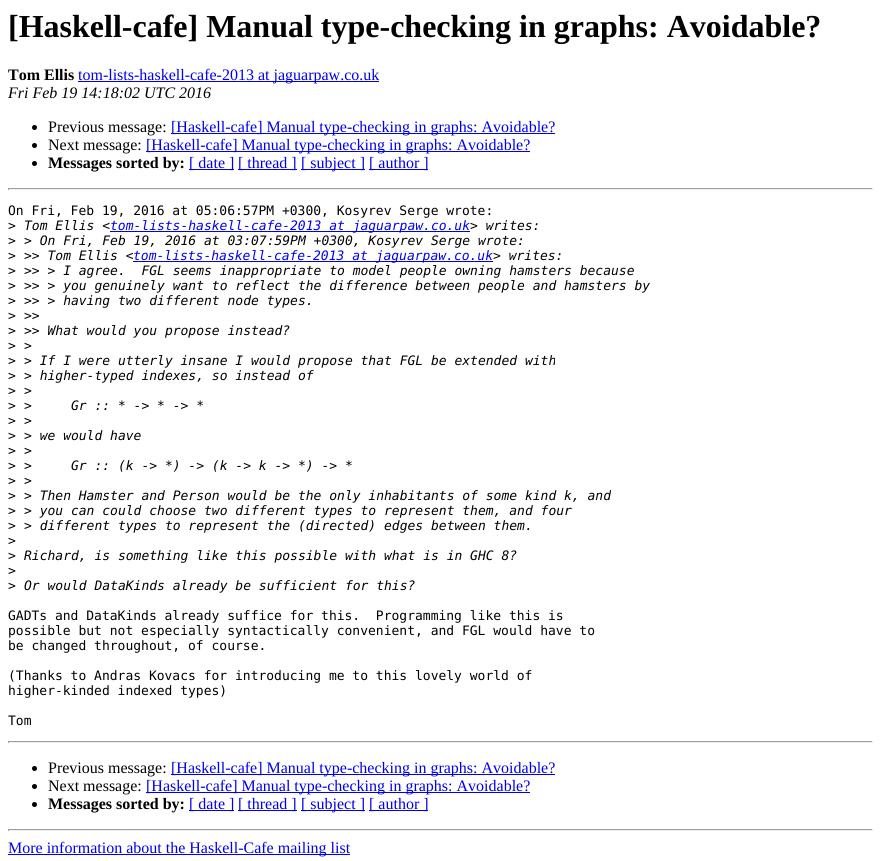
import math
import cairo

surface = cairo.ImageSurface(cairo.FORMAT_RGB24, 881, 861)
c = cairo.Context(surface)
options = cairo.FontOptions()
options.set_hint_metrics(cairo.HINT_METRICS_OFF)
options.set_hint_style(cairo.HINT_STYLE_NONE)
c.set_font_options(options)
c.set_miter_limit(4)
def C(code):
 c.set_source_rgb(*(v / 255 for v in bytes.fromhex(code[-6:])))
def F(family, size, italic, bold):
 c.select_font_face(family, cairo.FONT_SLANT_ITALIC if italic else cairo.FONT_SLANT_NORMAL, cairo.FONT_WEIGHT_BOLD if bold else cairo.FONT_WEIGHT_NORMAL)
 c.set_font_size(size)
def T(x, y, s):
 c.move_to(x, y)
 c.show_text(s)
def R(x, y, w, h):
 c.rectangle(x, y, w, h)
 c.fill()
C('ffffff')
c.paint()
F('Liberation Serif',32,0,1)
C('000000')
T(8,37,'[Haskell-cafe] Manual type-checking in graphs: Avoidable?')
F('Liberation Serif',16,0,1)
T(8,80,'Tom Ellis')
C('0000ee')
R(78,81,301,1)
F('Liberation Serif',16,0,0)
T(78,80,'tom-lists-haskell-cafe-2013 at jaguarpaw.co.uk')
F('Liberation Serif',16,1,0)
C('000000')
T(8,98,'Fri Feb 19 14:18:02 UTC 2016')
c.new_path()
c.arc(34.5,127.5,2.5,0,2 * math.pi)
c.fill()
F('Liberation Serif',16,0,0)
T(48,132,'Previous message:')
C('0000ee')
R(171,133,384,1)
T(171,132,'[Haskell-cafe] Manual type-checking in graphs: Avoidable?')
C('000000')
c.new_path()
c.arc(34.5,145.5,2.5,0,2 * math.pi)
c.fill()
T(48,150,'Next message:')
C('0000ee')
R(146,151,384,1)
T(146,150,'[Haskell-cafe] Manual type-checking in graphs: Avoidable?')
C('000000')
c.new_path()
c.arc(34.5,163.5,2.5,0,2 * math.pi)
c.fill()
F('Liberation Serif',16,0,1)
T(48,168,'Messages sorted by:')
C('0000ee')
R(189,169,45,1)
F('Liberation Serif',16,0,0)
T(189,168,'[ date ]')
R(238,169,59,1)
T(238,168,'[ thread ]')
R(301,169,64,1)
T(301,168,'[ subject ]')
R(369,169,59,1)
T(369,168,'[ author ]')
C('9f9f9f')
R(8,188,865,1)
C('eeeeee')
R(872,188,1,2)
R(8,189,865,1)
C('9f9f9f')
R(8,188,1,2)
F('DejaVu Sans Mono',13,0,0)
C('000000')
T(8,215,'On Fri, Feb 19, 2016 at 05:06:57PM +0300, Kosyrev Serge wrote:')
T(8,230,'>')
F('DejaVu Sans Mono',13,1,0)
T(24,230,'Tom Ellis <')
C('0000ee')
R(110,231,360,1)
T(110,230,'tom-lists-haskell-cafe-2013 at jaguarpaw.co.uk')
C('000000')
T(470,230,'> writes:')
F('DejaVu Sans Mono',13,0,0)
T(8,245,'>')
F('DejaVu Sans Mono',13,1,0)
T(24,245,'> On Fri, Feb 19, 2016 at 03:07:59PM +0300, Kosyrev Serge wrote:')
F('DejaVu Sans Mono',13,0,0)
T(8,260,'>')
F('DejaVu Sans Mono',13,1,0)
T(24,260,'>> Tom Ellis <')
C('0000ee')
R(133,261,360,1)
T(133,260,'tom-lists-haskell-cafe-2013 at jaguarpaw.co.uk')
C('000000')
T(493,260,'> writes:')
F('DejaVu Sans Mono',13,0,0)
T(8,275,'>')
F('DejaVu Sans Mono',13,1,0)
T(24,275,'>> > I agree.  FGL seems inappropriate to model people owning hamsters because')
F('DejaVu Sans Mono',13,0,0)
T(8,290,'>')
F('DejaVu Sans Mono',13,1,0)
T(24,290,'>> > you genuinely want to reflect the difference between people and hamsters by')
F('DejaVu Sans Mono',13,0,0)
T(8,305,'>')
F('DejaVu Sans Mono',13,1,0)
T(24,305,'>> > having two different node types.')
F('DejaVu Sans Mono',13,0,0)
T(8,320,'>')
F('DejaVu Sans Mono',13,1,0)
T(24,320,'>>')
F('DejaVu Sans Mono',13,0,0)
T(8,335,'>')
F('DejaVu Sans Mono',13,1,0)
T(24,335,'>> What would you propose instead?')
F('DejaVu Sans Mono',13,0,0)
T(8,350,'>')
F('DejaVu Sans Mono',13,1,0)
T(24,350,'>')
F('DejaVu Sans Mono',13,0,0)
T(8,365,'>')
F('DejaVu Sans Mono',13,1,0)
T(24,365,'> If I were utterly insane I would propose that FGL be extended with')
F('DejaVu Sans Mono',13,0,0)
T(8,380,'>')
F('DejaVu Sans Mono',13,1,0)
T(24,380,'> higher-typed indexes, so instead of')
F('DejaVu Sans Mono',13,0,0)
T(8,395,'>')
F('DejaVu Sans Mono',13,1,0)
T(24,395,'>')
F('DejaVu Sans Mono',13,0,0)
T(8,410,'>')
F('DejaVu Sans Mono',13,1,0)
T(24,410,'>     Gr :: * -> * -> *')
F('DejaVu Sans Mono',13,0,0)
T(8,425,'>')
F('DejaVu Sans Mono',13,1,0)
T(24,425,'>')
F('DejaVu Sans Mono',13,0,0)
T(8,440,'>')
F('DejaVu Sans Mono',13,1,0)
T(24,440,'> we would have')
F('DejaVu Sans Mono',13,0,0)
T(8,455,'>')
F('DejaVu Sans Mono',13,1,0)
T(24,455,'>')
F('DejaVu Sans Mono',13,0,0)
T(8,470,'>')
F('DejaVu Sans Mono',13,1,0)
T(24,470,'>     Gr :: (k -> *) -> (k -> k -> *) -> *')
F('DejaVu Sans Mono',13,0,0)
T(8,485,'>')
F('DejaVu Sans Mono',13,1,0)
T(24,485,'>')
F('DejaVu Sans Mono',13,0,0)
T(8,500,'>')
F('DejaVu Sans Mono',13,1,0)
T(24,500,'> Then Hamster and Person would be the only inhabitants of some kind k, and')
F('DejaVu Sans Mono',13,0,0)
T(8,515,'>')
F('DejaVu Sans Mono',13,1,0)
T(24,515,'> you can could choose two different types to represent them, and four')
F('DejaVu Sans Mono',13,0,0)
T(8,530,'>')
F('DejaVu Sans Mono',13,1,0)
T(24,530,'> different types to represent the (directed) edges between them.')
F('DejaVu Sans Mono',13,0,0)
T(8,545,'>')
T(8,560,'>')
F('DejaVu Sans Mono',13,1,0)
T(24,560,'Richard, is something like this possible with what is in GHC 8?')
F('DejaVu Sans Mono',13,0,0)
T(8,575,'>')
T(8,590,'>')
F('DejaVu Sans Mono',13,1,0)
T(24,590,'Or would DataKinds already be sufficient for this?')
F('DejaVu Sans Mono',13,0,0)
T(8,620,'GADTs and DataKinds already suffice for this.  Programming like this is')
T(8,635,'possible but not especially syntactically convenient, and FGL would have to')
T(8,650,'be changed throughout, of course.')
T(8,680,'(Thanks to Andras Kovacs for introducing me to this lovely world of')
T(8,695,'higher-kinded indexed types)')
T(8,725,'Tom')
C('9f9f9f')
R(8,741,865,1)
C('eeeeee')
R(872,741,1,2)
R(8,742,865,1)
C('9f9f9f')
R(8,741,1,2)
C('000000')
c.new_path()
c.arc(34.5,768.5,2.5,0,2 * math.pi)
c.fill()
F('Liberation Serif',16,0,0)
T(48,773,'Previous message:')
C('0000ee')
R(171,774,384,1)
T(171,773,'[Haskell-cafe] Manual type-checking in graphs: Avoidable?')
C('000000')
c.new_path()
c.arc(34.5,786.5,2.5,0,2 * math.pi)
c.fill()
T(48,791,'Next message:')
C('0000ee')
R(146,792,384,1)
T(146,791,'[Haskell-cafe] Manual type-checking in graphs: Avoidable?')
C('000000')
c.new_path()
c.arc(34.5,804.5,2.5,0,2 * math.pi)
c.fill()
F('Liberation Serif',16,0,1)
T(48,809,'Messages sorted by:')
C('0000ee')
R(189,810,45,1)
F('Liberation Serif',16,0,0)
T(189,809,'[ date ]')
R(238,810,59,1)
T(238,809,'[ thread ]')
R(301,810,64,1)
T(301,809,'[ subject ]')
R(369,810,59,1)
T(369,809,'[ author ]')
C('9f9f9f')
R(8,829,865,1)
C('eeeeee')
R(872,829,1,2)
R(8,830,865,1)
C('9f9f9f')
R(8,829,1,2)
C('0000ee')
R(8,854,342,1)
T(8,853,'More information about the Haskell-Cafe mailing list')
surface.write_to_png('o.png')
